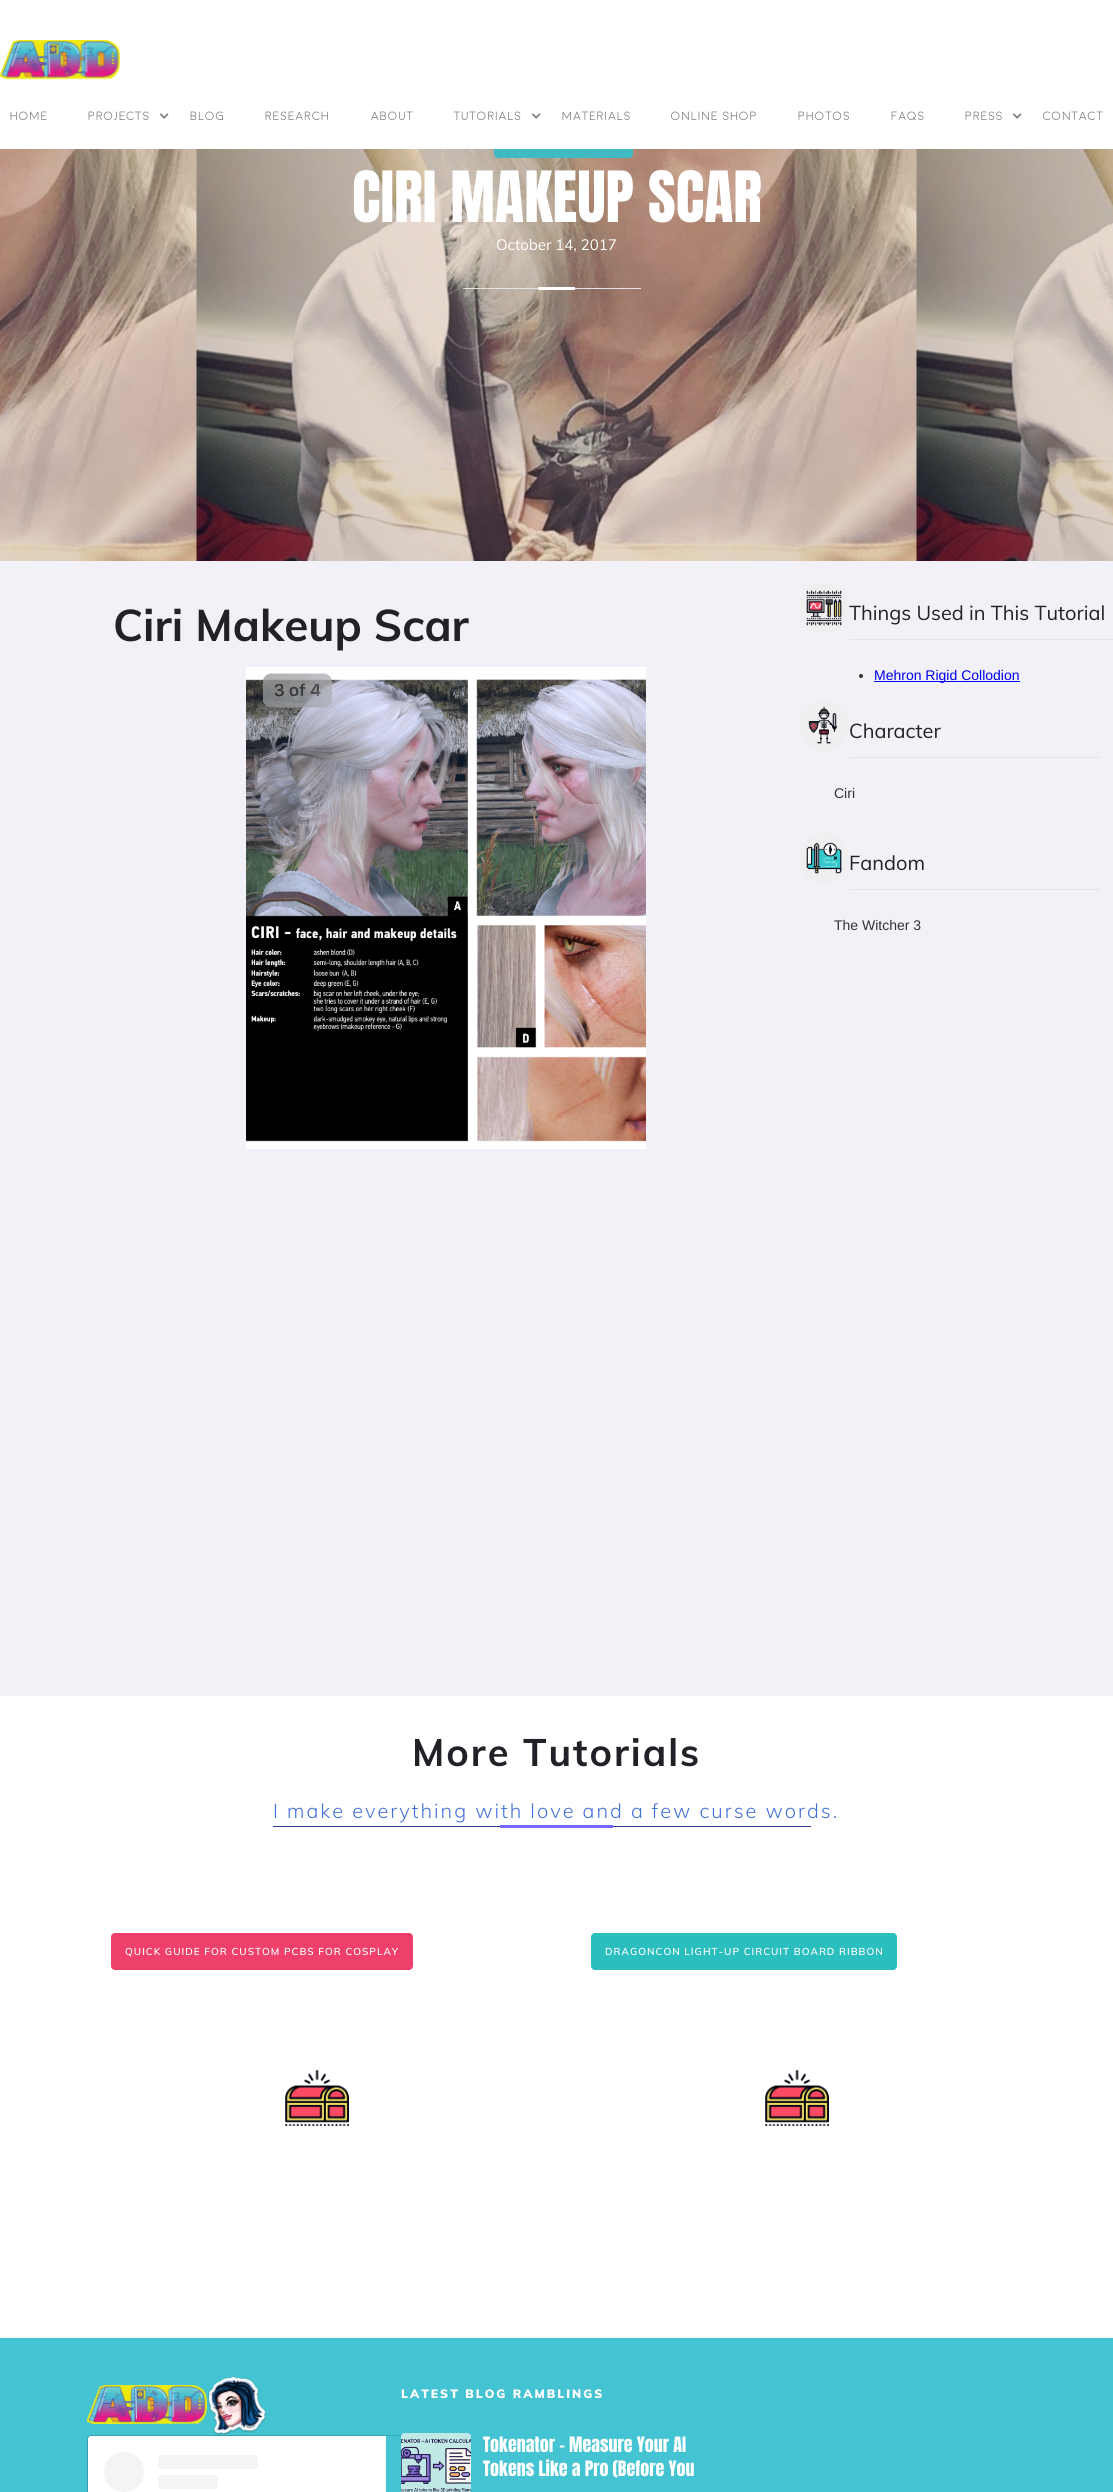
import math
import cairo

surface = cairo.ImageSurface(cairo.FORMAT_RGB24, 1113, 2492)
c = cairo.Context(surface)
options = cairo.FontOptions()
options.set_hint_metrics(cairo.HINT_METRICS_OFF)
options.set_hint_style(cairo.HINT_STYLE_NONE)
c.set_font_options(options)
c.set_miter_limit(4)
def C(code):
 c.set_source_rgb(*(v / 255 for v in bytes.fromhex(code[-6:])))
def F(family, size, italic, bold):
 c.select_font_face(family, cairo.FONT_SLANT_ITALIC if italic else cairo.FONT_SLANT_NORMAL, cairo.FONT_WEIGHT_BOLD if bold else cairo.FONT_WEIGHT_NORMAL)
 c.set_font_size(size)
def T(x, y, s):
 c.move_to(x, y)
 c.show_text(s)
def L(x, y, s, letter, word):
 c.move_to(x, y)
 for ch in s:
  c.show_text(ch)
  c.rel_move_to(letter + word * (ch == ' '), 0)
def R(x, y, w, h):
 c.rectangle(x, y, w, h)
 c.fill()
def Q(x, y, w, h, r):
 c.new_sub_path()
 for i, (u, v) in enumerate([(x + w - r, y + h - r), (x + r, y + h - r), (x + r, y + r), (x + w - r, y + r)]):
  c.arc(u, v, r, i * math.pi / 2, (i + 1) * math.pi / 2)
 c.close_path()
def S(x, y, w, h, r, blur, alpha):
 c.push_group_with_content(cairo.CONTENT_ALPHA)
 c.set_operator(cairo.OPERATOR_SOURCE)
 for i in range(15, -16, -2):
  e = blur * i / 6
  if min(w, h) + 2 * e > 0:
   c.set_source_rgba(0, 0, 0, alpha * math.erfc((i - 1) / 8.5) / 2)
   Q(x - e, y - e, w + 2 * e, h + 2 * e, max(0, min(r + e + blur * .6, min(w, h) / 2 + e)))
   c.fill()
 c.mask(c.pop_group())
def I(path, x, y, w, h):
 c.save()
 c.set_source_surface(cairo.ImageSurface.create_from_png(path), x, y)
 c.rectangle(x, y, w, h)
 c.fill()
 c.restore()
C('ffffff')
c.paint()
I('3.png',0,149,1113,412)
C('40bac3')
Q(494,121,139,37,4)
c.fill()
C('ffffff')
R(494,121,139,28)
I('1.png',0,40,120,40)
F('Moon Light',12,0,0)
C('75757c')
L(10,120,'HOME',1,0)
L(88,120,'PROJECTS',1,0)
I('2.png',160,113,9,6)
L(190,120,'BLOG',1,0)
L(265,120,'RESEARCH',1,0)
L(371,120,'ABOUT',1,0)
L(454,120,'TUTORIALS',1,0)
I('2.png',532,113,9,6)
L(562,120,'MATERIALS',1,0)
L(671,120,'ONLINE SHOP',1,0)
L(798,120,'PHOTOS',1,0)
L(891,120,'FAQS',1,0)
L(965,120,'PRESS',1,0)
I('2.png',1013,113,9,6)
L(1043,120,'CONTACT',1,0)
F('Anton',60,0,0)
C('ffffff')
T(352,222,'CIRI MAKEUP SCAR')
F('Muli',15,0,0)
T(496,250,'October 14, 2017')
C('e4e4e4')
R(463,288,178,1)
C('ffffff')
R(538,287,37,3)
C('f1f1f7')
R(0,561,1113,1135)
F('Muli',44,0,1)
C('212127')
T(113,641,'Ciri Makeup Scar')
I('4.png',246,667,400,482)
I('5.png',799,583,50,50)
C('e4e4e4')
R(849,639,264,1)
F('Muli',20,0,0)
C('212127')
T(849,620,'Things Used in This Tutorial')
C('333333')
c.new_path()
c.arc(861,676,2,0,2 * math.pi)
c.fill()
C('0000ee')
R(874,681,146,1)
F('Liberation Sans',14,0,0)
T(874,680,'Mehron Rigid Collodion')
I('6.png',799,701,50,50)
C('e4e4e4')
R(849,757,251,1)
F('Muli',20,0,0)
C('212127')
T(849,738,'Character')
F('Liberation Sans',14,0,0)
C('333333')
T(834,798,'Ciri')
I('7.png',799,833,50,50)
C('e4e4e4')
R(849,889,251,1)
F('Muli',20,0,0)
C('212127')
T(849,870,'Fandom')
F('Liberation Sans',14,0,0)
C('333333')
T(834,930,'The Witcher 3')
F('Muli',38,0,1)
C('212127')
L(412,1766,'More Tutorials',2,0)
F('Muli Light',20,0,0)
C('4772d9')
L(273,1818,'I make everything with love and a few curse words.',2,0)
C('323e9b')
R(273,1826,538,1)
C('7567f8')
R(500,1825,113,3)
C('ee406b')
Q(111,1933,302,37,4)
c.fill()
F('Muli SemiBold',10,0,0)
C('ffffff')
L(125,1955,'QUICK GUIDE FOR CUSTOM PCBS FOR COSPLAY',1,0)
I('8.png',285,2070,64,56)
C('2abebe')
Q(591,1933,306,37,4)
c.fill()
C('ffffff')
L(605,1955,'DRAGONCON LIGHT-UP CIRCUIT BOARD RIBBON',1,0)
I('8.png',765,2070,64,56)
C('44c3d2')
R(0,2338,1113,154)
I('9.png',87,2385,120,39)
I('10.png',207,2376,59,59)
c.save()
c.rectangle(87,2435,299,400)
c.clip()
C('000000')
S(88,2437,326,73,3,5,.15)
c.restore()
c.save()
c.set_fill_rule(cairo.FILL_RULE_EVEN_ODD)
c.new_path()
c.move_to(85,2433)
c.line_to(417,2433)
c.line_to(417,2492)
c.line_to(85,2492)
c.close_path()
c.move_to(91,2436)
c.line_to(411,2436)
c.curve_to(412.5,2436,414,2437.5,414,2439)
c.line_to(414,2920)
c.curve_to(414,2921.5,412.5,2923,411,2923)
c.line_to(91,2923)
c.curve_to(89.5,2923,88,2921.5,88,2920)
c.line_to(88,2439)
c.curve_to(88,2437.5,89.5,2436,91,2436)
c.close_path()
c.clip()
C('000000')
S(88,2436,326,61,3,.5,.5)
c.restore()
C('ffffff')
c.new_path()
c.move_to(91,2436)
c.line_to(386,2436)
c.line_to(386,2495)
c.line_to(88,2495)
c.line_to(88,2439)
c.curve_to(88,2437.5,89.5,2436,91,2436)
c.close_path()
c.fill()
C('f4f4f4')
c.arc(124,2472,20,0,2 * math.pi)
c.fill()
Q(158,2455,100,14,4)
c.fill()
Q(158,2475,60,14,4)
c.fill()
F('Muli Black',12,0,0)
C('ffffff')
L(401,2398,'LATEST BLOG RAMBLINGS',2,0)
I('11.png',401,2433,70,59)
F('Anton',18,0,0)
T(483,2452,'Tokenator – Measure Your AI')
T(483,2476,'Tokens Like a Pro (Before You')
surface.write_to_png('o.png')
